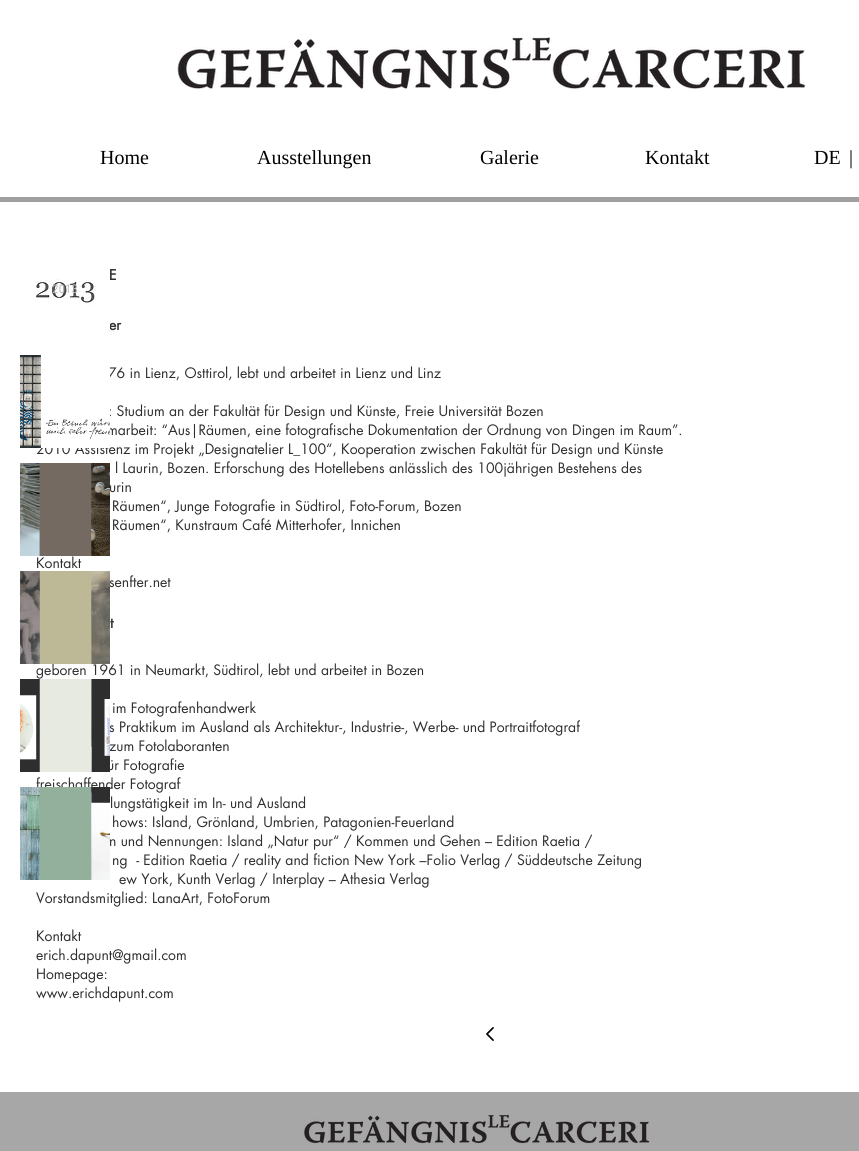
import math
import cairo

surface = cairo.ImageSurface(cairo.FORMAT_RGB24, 859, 1151)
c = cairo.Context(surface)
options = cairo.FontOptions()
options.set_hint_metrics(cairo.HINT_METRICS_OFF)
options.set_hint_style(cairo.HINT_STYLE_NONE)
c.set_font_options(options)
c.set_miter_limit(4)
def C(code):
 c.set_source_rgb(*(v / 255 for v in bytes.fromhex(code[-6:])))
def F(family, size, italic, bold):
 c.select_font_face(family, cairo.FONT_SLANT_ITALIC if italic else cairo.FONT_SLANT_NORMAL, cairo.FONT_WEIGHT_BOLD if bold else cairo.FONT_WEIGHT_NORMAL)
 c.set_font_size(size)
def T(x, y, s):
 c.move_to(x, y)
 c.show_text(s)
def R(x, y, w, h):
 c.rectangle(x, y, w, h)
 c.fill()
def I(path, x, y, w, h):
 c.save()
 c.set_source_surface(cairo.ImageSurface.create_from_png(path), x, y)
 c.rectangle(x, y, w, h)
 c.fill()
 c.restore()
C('ffffff')
c.paint()
I('1.png',177,37,629,52)
C('a0a09f')
R(0,197,859,5)
F('Liberation Serif',20,0,0)
C('000000')
T(100,164,'Home')
T(257,164,'Ausstellungen')
T(480,164,'Galerie')
T(645,164,'Kontakt')
T(814,164,'DE')
T(849,164,'|')
F('futura',14,0,1)
C('2f2e2e')
T(109,280,'E')
T(109,330,'er')
F('futura',14,0,0)
T(108,378,'76 in Lienz, Osttirol, lebt und arbeitet in Lienz und Linz')
T(108,416,': Studium an der Fakultät für Design und Künste, Freie Universität Bozen')
T(107,435,'marbeit: “Aus|Räumen, eine fotografische Dokumentation der Ordnung von Dingen im Raum”.')
T(36,454,'2010 Assistenz im Projekt „Designatelier L_100“, Kooperation zwischen Fakultät für Design und Künste')
T(115,473,'l Laurin, Bozen. Erforschung des Hotellebens anlässlich des 100jährigen Bestehens des')
T(109,492,'urin')
T(112,511,'Räumen“, Junge Fotografie in Südtirol, Foto-Forum, Bozen')
T(112,530,'Räumen“, Kunstraum Café Mitterhofer, Innichen')
T(36,568,'Kontakt')
T(109,587,'senfter.net')
F('futura',14,0,1)
T(110,628,'t')
F('futura',14,0,0)
T(36,675,'geboren 1961 in Neumarkt, Südtirol, lebt und arbeitet in Bozen')
T(112,713,'im Fotografenhandwerk')
T(109,732,'s Praktikum im Ausland als Architektur-, Industrie-, Werbe- und Portraitfotograf')
T(109,751,'zum Fotolaboranten')
T(107,770,'ür Fotografie')
T(36,789,'freischaffender Fotograf')
T(110,808,'lungstätigkeit im In- und Ausland')
T(112,827,'hows: Island, Grönland, Umbrien, Patagonien-Feuerland')
T(109,846,'n und Nennungen: Island „Natur pur“ / Kommen und Gehen – Edition Raetia /')
T(112,865,'ng  - Edition Raetia / reality and fiction New York –Folio Verlag / Süddeutsche Zeitung')
T(119,884,'ew York, Kunth Verlag / Interplay – Athesia Verlag')
T(36,903,'Vorstandsmitglied: LanaArt, FotoForum')
T(36,941,'Kontakt')
T(36,960,'erich.dapunt@gmail.com')
T(36,979,'Homepage:')
T(36,998,'www.erichdapunt.com')
I('2.png',486,1027,8,14)
I('3.png',20,247,90,93)
F('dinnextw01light',12,0,1)
C('bdbdbd')
T(52,293,'2013')
I('4.png',20,355,90,93)
I('5.png',20,463,90,93)
I('6.png',20,571,90,93)
C('2f2e2e')
R(20,679,90,93)
I('7.png',20,679,90,93)
R(91,787,19,16)
I('8.png',20,787,90,93)
C('a7a7a7')
R(0,1092,859,59)
I('9.png',304,1114,346,30)
surface.write_to_png('o.png')
